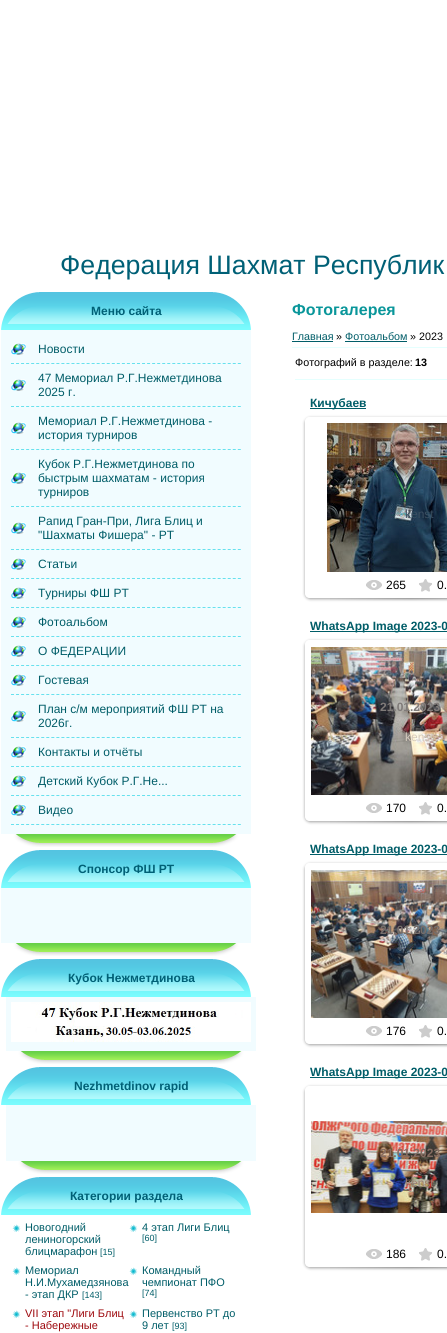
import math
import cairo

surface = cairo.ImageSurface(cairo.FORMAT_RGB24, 447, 1333)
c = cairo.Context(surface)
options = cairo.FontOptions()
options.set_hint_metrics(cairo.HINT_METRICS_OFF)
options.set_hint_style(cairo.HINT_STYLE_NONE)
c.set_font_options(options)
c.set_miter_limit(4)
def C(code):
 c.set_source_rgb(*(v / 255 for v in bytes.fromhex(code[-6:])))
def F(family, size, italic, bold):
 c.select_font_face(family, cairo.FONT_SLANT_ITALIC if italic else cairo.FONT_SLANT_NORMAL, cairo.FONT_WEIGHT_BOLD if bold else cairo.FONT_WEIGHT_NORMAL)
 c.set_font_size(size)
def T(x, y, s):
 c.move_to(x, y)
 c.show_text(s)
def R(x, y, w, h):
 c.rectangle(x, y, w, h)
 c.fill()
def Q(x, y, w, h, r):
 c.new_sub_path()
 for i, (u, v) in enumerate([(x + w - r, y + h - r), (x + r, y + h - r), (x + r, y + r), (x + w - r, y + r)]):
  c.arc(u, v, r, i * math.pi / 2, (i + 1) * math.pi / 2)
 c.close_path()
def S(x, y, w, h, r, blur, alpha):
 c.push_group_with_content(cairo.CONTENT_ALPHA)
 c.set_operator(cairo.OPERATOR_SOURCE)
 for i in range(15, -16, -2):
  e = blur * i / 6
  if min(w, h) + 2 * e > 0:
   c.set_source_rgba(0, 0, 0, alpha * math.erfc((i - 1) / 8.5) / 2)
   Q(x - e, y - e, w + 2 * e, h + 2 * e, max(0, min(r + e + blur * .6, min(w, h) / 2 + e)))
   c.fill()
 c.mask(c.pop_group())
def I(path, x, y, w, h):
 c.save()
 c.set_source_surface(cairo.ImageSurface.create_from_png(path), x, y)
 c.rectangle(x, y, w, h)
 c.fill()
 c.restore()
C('ffffff')
c.paint()
F('Liberation Sans',26.7,0,0)
C('006076')
T(60,274,'Федерация Шахмат Республик')
I('1.png',1,292,250,38)
F('Liberation Sans',12,0,1)
T(91,315,'Меню сайта')
I('2.png',1,330,250,517)
I('3.png',11,343,15,12)
c.new_path()
c.move_to(11,363.5)
c.line_to(241,363.5)
C('67e1ee')
c.set_line_width(1)
c.set_dash([3,2.04])
c.stroke()
F('Liberation Sans',12,0,0)
C('005d68')
T(38,353,'Новости')
I('3.png',11,379,15,12)
c.new_path()
c.move_to(11,406.5)
c.line_to(241,406.5)
C('67e1ee')
c.stroke()
C('005d68')
T(38,382,'47 Мемориал Р.Г.Нежметдинова')
T(38,396,'2025 г.')
I('3.png',11,422,15,12)
c.new_path()
c.move_to(11,449.5)
c.line_to(241,449.5)
C('67e1ee')
c.stroke()
C('005d68')
T(38,425,'Мемориал Р.Г.Нежметдинова -')
T(38,439,'история турниров')
I('3.png',11,472,15,12)
c.new_path()
c.move_to(11,506.5)
c.line_to(241,506.5)
C('67e1ee')
c.stroke()
C('005d68')
T(38,468,'Кубок Р.Г.Нежметдинова по')
T(38,482,'быстрым шахматам - история')
T(38,496,'турниров')
I('3.png',11,522,15,12)
c.new_path()
c.move_to(11,549.5)
c.line_to(241,549.5)
C('67e1ee')
c.stroke()
C('005d68')
T(38,525,'Рапид Гран-При, Лига Блиц и')
T(38,539,'"Шахматы Фишера" - РТ')
I('3.png',11,558,15,12)
c.new_path()
c.move_to(11,578.5)
c.line_to(241,578.5)
C('67e1ee')
c.stroke()
C('005d68')
T(38,568,'Статьи')
I('3.png',11,587,15,12)
c.new_path()
c.move_to(11,607.5)
c.line_to(241,607.5)
C('67e1ee')
c.stroke()
C('005d68')
T(38,597,'Турниры ФШ РТ')
I('3.png',11,616,15,12)
c.new_path()
c.move_to(11,636.5)
c.line_to(241,636.5)
C('67e1ee')
c.stroke()
C('005d68')
T(38,626,'Фотоальбом')
I('3.png',11,645,15,12)
c.new_path()
c.move_to(11,665.5)
c.line_to(241,665.5)
C('67e1ee')
c.stroke()
C('005d68')
T(38,655,'О ФЕДЕРАЦИИ')
I('3.png',11,674,15,12)
c.new_path()
c.move_to(11,694.5)
c.line_to(241,694.5)
C('67e1ee')
c.stroke()
C('005d68')
T(38,684,'Гостевая')
I('3.png',11,710,15,12)
c.new_path()
c.move_to(11,737.5)
c.line_to(241,737.5)
C('67e1ee')
c.stroke()
C('005d68')
T(38,713,'План с/м мероприятий ФШ РТ на')
T(38,727,'2026г.')
I('3.png',11,746,15,12)
c.new_path()
c.move_to(11,766.5)
c.line_to(241,766.5)
C('67e1ee')
c.stroke()
C('005d68')
T(38,756,'Контакты и отчёты')
I('3.png',11,775,15,12)
c.new_path()
c.move_to(11,795.5)
c.line_to(241,795.5)
C('67e1ee')
c.stroke()
C('005d68')
T(38,785,'Детский Кубок Р.Г.Не...')
I('3.png',11,804,15,12)
c.new_path()
c.move_to(11,824.5)
c.line_to(241,824.5)
C('67e1ee')
c.stroke()
C('005d68')
T(38,814,'Видео')
I('1.png',1,850,250,38)
F('Liberation Sans',12,0,1)
C('006076')
T(78,873,'Спонсор ФШ РТ')
I('4.png',1,888,250,68)
I('1.png',1,959,250,38)
T(68,982,'Кубок Нежметдинова')
I('5.png',6,997,250,67)
I('6.png',11,1002,240,40)
I('1.png',1,1067,250,38)
T(74,1090,'Nezhmetdinov rapid')
I('7.png',6,1105,250,69)
I('1.png',1,1177,250,38)
T(70,1200,'Категории раздела')
I('8.png',12,1224,9,8)
F('Liberation Sans',11,0,0)
C('005d68')
T(25,1231,'Новогодний')
T(25,1243,'лениногорский')
T(25,1255,'блицмарафон')
F('Liberation Sans',9,0,0)
T(100,1255,'[15]')
I('8.png',129,1224,9,8)
F('Liberation Sans',11,0,0)
T(142,1231,'4 этап Лиги Блиц')
F('Liberation Sans',9,0,0)
T(142,1241,'[60]')
I('8.png',12,1267,9,8)
F('Liberation Sans',11,0,0)
T(25,1274,'Мемориал')
T(25,1286,'Н.И.Мухамедзянова')
T(25,1298,'- этап ДКР')
F('Liberation Sans',9,0,0)
T(82,1298,'[143]')
I('8.png',129,1267,9,8)
F('Liberation Sans',11,0,0)
T(142,1274,'Командный')
T(142,1286,'чемпионат ПФО')
F('Liberation Sans',9,0,0)
T(142,1296,'[74]')
I('8.png',12,1310,9,8)
F('Liberation Sans',11,0,0)
C('9d080d')
T(25,1317,'VII этап "Лиги Блиц')
T(25,1329,'- Набережные')
I('8.png',129,1310,9,8)
C('005d68')
T(142,1317,'Первенство РТ до')
T(142,1329,'9 лет')
F('Liberation Sans',9,0,0)
T(172,1329,'[93]')
F('Liberation Sans',16,0,1)
C('09969a')
T(292,315,'Фотогалерея')
F('Liberation Sans',10.75,0,0)
C('005d68')
T(292,340,'Главная')
R(292,341,41,1)
C('000000')
T(336,340,'»')
C('005d68')
T(345,340,'Фотоальбом')
R(345,341,62,1)
C('000000')
T(410,340,'» 2023')
C('e5fffe')
R(292,347,155,1)
C('000000')
T(295,366,'Фотографий в разделе:')
F('Liberation Sans',10.75,0,1)
T(415,366,'13')
C('e5fffe')
R(295,379,152,1)
C('005d68')
R(310,408,56,1)
F('Liberation Sans',12,0,1)
T(310,407,'Кичубаев')
c.save()
c.set_fill_rule(cairo.FILL_RULE_EVEN_ODD)
c.new_path()
c.move_to(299,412)
c.line_to(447,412)
c.line_to(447,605)
c.line_to(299,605)
c.close_path()
c.move_to(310,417)
c.line_to(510,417)
c.curve_to(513,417,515,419,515,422)
c.line_to(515,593)
c.curve_to(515,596,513,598,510,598)
c.line_to(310,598)
c.curve_to(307,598,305,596,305,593)
c.line_to(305,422)
c.curve_to(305,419,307,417,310,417)
c.close_path()
c.clip()
C('000000')
S(305,418,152,181,5,1.5,.37)
c.restore()
I('9.png',327,423,120,149)
F('Liberation Sans',12,0,0)
C('3a4f61')
T(405,518,'kenst')
I('10.png',366,580,16,10)
C('000000')
T(386,589,'265')
I('11.png',419,579,13,13)
T(437,589,'0.')
I('12.png',330,598,117,3)
C('005d68')
R(310,631,137,1)
F('Liberation Sans',12,0,1)
T(310,630,'WhatsApp Image 2023-0')
c.save()
c.set_fill_rule(cairo.FILL_RULE_EVEN_ODD)
c.new_path()
c.move_to(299,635)
c.line_to(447,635)
c.line_to(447,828)
c.line_to(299,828)
c.close_path()
c.move_to(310,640)
c.line_to(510,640)
c.curve_to(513,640,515,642,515,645)
c.line_to(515,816)
c.curve_to(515,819,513,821,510,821)
c.line_to(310,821)
c.curve_to(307,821,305,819,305,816)
c.line_to(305,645)
c.curve_to(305,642,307,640,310,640)
c.close_path()
c.clip()
C('000000')
S(305,641,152,181,5,1.5,.37)
c.restore()
I('13.png',311,647,136,148)
C('807b79')
T(380,711,'21.01.2023')
F('Liberation Sans',12,0,0)
C('d4cabd')
T(405,741,'kenst')
I('10.png',366,803,16,10)
C('000000')
T(386,812,'170')
I('11.png',419,802,13,13)
T(437,812,'0.')
I('12.png',330,821,117,3)
C('005d68')
R(310,854,137,1)
F('Liberation Sans',12,0,1)
T(310,853,'WhatsApp Image 2023-0')
c.save()
c.set_fill_rule(cairo.FILL_RULE_EVEN_ODD)
c.new_path()
c.move_to(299,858)
c.line_to(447,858)
c.line_to(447,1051)
c.line_to(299,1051)
c.close_path()
c.move_to(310,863)
c.line_to(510,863)
c.curve_to(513,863,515,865,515,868)
c.line_to(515,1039)
c.curve_to(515,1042,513,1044,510,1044)
c.line_to(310,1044)
c.curve_to(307,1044,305,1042,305,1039)
c.line_to(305,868)
c.curve_to(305,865,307,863,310,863)
c.close_path()
c.clip()
C('000000')
S(305,864,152,181,5,1.5,.37)
c.restore()
I('14.png',311,870,136,148)
C('756e6b')
T(380,934,'21.01.2023')
F('Liberation Sans',12,0,0)
C('9c9f9d')
T(430,964,'t')
I('10.png',366,1026,16,10)
C('000000')
T(386,1035,'176')
I('11.png',419,1025,13,13)
T(437,1035,'0.')
I('12.png',330,1044,117,3)
C('005d68')
R(310,1077,137,1)
F('Liberation Sans',12,0,1)
T(310,1076,'WhatsApp Image 2023-0')
c.save()
c.set_fill_rule(cairo.FILL_RULE_EVEN_ODD)
c.new_path()
c.move_to(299,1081)
c.line_to(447,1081)
c.line_to(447,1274)
c.line_to(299,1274)
c.close_path()
c.move_to(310,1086)
c.line_to(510,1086)
c.curve_to(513,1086,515,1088,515,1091)
c.line_to(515,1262)
c.curve_to(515,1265,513,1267,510,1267)
c.line_to(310,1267)
c.curve_to(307,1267,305,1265,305,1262)
c.line_to(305,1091)
c.curve_to(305,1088,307,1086,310,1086)
c.close_path()
c.clip()
C('000000')
S(305,1087,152,181,5,1.5,.37)
c.restore()
I('15.png',311,1121,136,92)
C('856c61')
T(380,1157,'21.01.2023')
F('Liberation Sans',12,0,0)
C('9d8171')
T(405,1187,'kenst')
I('10.png',366,1249,16,10)
C('000000')
T(386,1258,'186')
I('11.png',419,1248,13,13)
T(437,1258,'0.')
I('12.png',330,1267,117,3)
surface.write_to_png('o.png')
